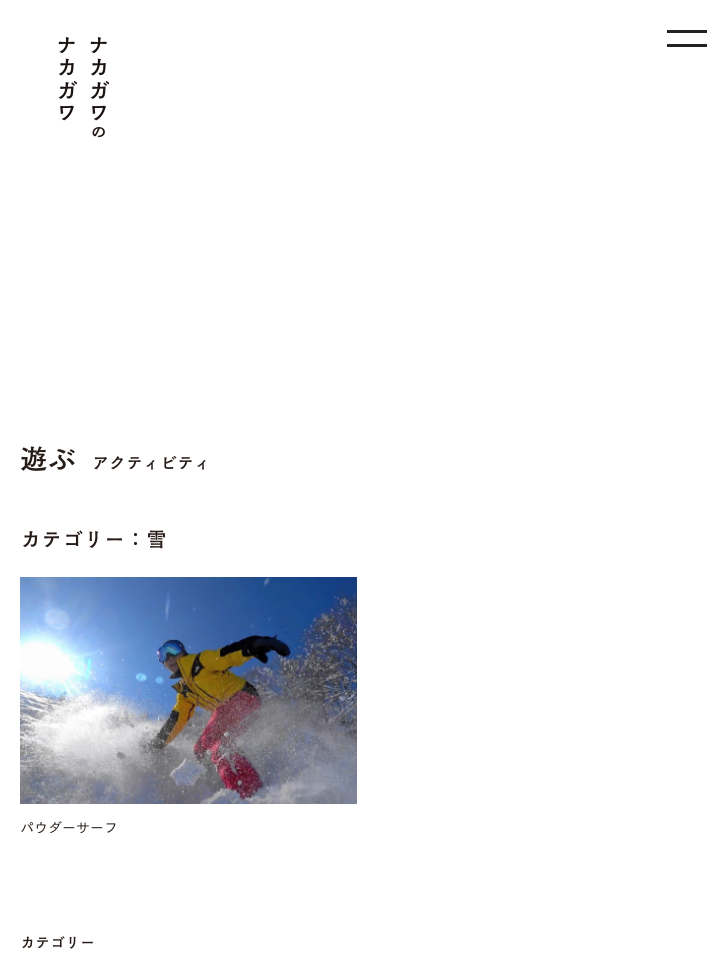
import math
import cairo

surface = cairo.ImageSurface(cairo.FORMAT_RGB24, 727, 962)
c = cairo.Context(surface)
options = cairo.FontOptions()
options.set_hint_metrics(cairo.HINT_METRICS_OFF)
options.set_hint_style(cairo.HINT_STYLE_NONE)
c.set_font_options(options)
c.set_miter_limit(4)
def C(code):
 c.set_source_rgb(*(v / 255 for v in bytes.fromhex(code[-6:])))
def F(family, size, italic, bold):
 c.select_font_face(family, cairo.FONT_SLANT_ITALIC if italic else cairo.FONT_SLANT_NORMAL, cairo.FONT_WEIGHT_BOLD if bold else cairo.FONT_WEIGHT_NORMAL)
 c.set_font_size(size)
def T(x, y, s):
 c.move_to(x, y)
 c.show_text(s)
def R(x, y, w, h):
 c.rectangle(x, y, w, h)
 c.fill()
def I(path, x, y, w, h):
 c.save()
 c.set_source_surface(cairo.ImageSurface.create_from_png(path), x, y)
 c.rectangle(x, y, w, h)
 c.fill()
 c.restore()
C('ffffff')
c.paint()
I('1.png',58,37,52,101)
C('222222')
R(667,30,40,3)
R(667,44,40,3)
F('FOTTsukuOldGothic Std',28,0,1)
C('261b17')
T(20,469,'遊ぶ')
F('FOTTsukuOldGothic Std',17,0,1)
T(92,469,'アクティビティ')
F('FOTTsukuOldGothic Std',21,0,1)
T(20,547,'カテゴリー：雪')
I('2.png',20,577,337,227)
F('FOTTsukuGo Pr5 Medium',14,0,0)
T(20,833,'パウダーサーフ')
F('FOTTsukuOldGothic Std',15,0,1)
T(20,948,'カテゴリー')
surface.write_to_png('o.png')
